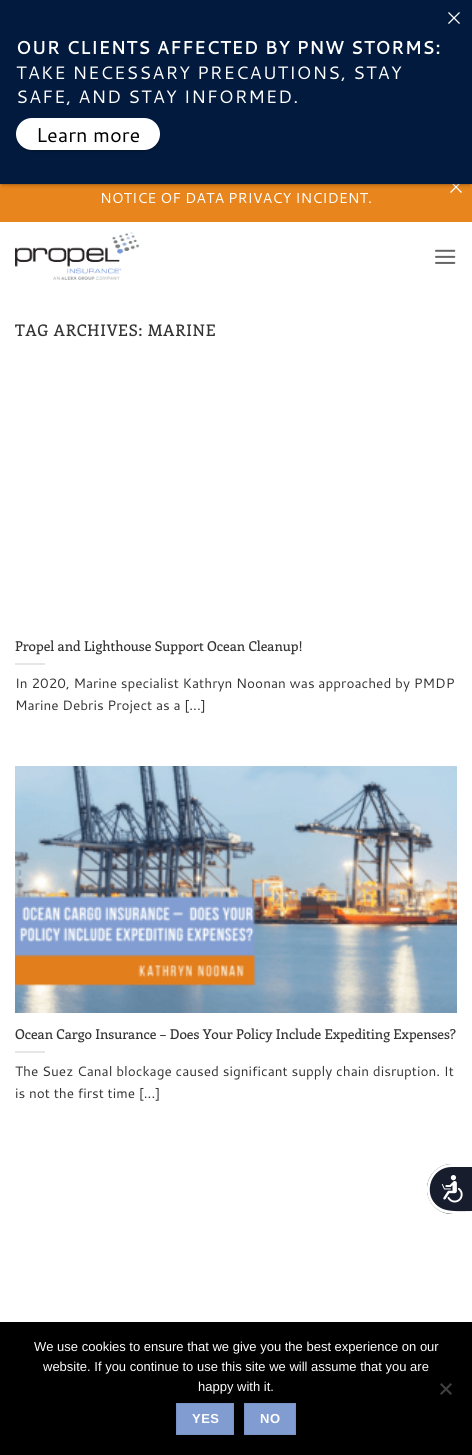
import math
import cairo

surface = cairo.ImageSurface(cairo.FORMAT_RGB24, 472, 1455)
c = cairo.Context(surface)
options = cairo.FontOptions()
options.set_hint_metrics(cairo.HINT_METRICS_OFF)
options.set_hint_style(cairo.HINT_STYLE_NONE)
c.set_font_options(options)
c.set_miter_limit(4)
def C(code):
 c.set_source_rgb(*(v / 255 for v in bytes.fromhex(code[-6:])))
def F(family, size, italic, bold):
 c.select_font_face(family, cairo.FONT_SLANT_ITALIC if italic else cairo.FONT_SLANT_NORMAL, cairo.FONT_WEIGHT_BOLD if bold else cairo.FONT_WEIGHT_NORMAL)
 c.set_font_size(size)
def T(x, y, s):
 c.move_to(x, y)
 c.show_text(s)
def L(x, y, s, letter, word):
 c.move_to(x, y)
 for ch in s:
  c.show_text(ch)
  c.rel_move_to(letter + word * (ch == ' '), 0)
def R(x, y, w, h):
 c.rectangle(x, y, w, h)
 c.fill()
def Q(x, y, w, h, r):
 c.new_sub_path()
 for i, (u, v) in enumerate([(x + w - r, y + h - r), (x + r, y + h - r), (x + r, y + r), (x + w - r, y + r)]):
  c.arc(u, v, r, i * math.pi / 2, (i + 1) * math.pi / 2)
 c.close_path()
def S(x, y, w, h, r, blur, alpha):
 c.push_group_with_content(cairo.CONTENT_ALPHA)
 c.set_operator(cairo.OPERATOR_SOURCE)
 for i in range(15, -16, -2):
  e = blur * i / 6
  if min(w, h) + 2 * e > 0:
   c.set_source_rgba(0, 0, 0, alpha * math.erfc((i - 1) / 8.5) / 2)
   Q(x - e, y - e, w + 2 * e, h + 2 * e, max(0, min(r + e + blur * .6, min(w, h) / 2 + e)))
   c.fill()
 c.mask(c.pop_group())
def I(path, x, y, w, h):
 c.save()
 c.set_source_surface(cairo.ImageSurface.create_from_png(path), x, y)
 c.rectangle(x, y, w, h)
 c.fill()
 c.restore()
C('ffffff')
c.paint()
C('e8851c')
R(0,184,472,38)
I('2.png',450,184,12,9)
C('000000')
S(2,4,468,180,0,2,.5)
C('011a3d')
R(0,0,472,184)
I('1.png',448,12,12,12)
F('Cantarell',18,0,1)
C('ffffff')
L(16,54,'OUR CLIENTS AFFECTED BY PNW STORMS:',1,0)
F('Cantarell',18,0,0)
L(16,79,'TAKE NECESSARY PRECAUTIONS, STAY',1,0)
L(16,103,'SAFE, AND STAY INFORMED.',1,0)
C('000000')
S(18,122,140,28,14,2,.5)
C('ffffff')
Q(16,118,144,32,16)
c.fill()
F('Cantarell',20,0,0)
C('000000')
T(36,142,'Learn more')
F('Cantarell',14.4,0,0)
C('ffffff')
T(100,203,'NOTICE OF DATA PRIVACY INCIDENT.')
I('3.png',15,232,124,48)
I('4.png',435,249,21,15)
F('Enriqueta Medium',16,0,0)
C('353435')
L(15,336,'TAG ARCHIVES: MARINE',.8,0)
F('Enriqueta Medium',13.6,0,0)
T(15,651,'Propel and Lighthouse Support Ocean Cleanup!')
C('e6e6e6')
R(15,663,30,2)
F('Cantarell',13.6,0,0)
C('353435')
T(15,688,'In 2020, Marine specialist Kathryn Noonan was approached by PMDP')
T(15,710,'Marine Debris Project as a [...]')
I('5.png',15,766,442,247)
F('Enriqueta Medium',13.6,0,0)
T(15,1039,'Ocean Cargo Insurance – Does Your Policy Include Expediting Expenses?')
C('e6e6e6')
R(15,1051,30,2)
F('Cantarell',13.6,0,0)
C('353435')
T(15,1076,'The Suez Canal blockage caused significant supply chain disruption. It')
T(15,1098,'is not the first time [...]')
C('171d2d')
c.new_path()
c.move_to(452,1164)
c.line_to(472,1164)
c.line_to(472,1214)
c.line_to(452,1214)
c.curve_to(438,1214,427,1203,427,1189)
c.curve_to(427,1175,438,1164,452,1164)
c.close_path()
c.fill()
C('ffffff')
c.set_fill_rule(cairo.FILL_RULE_EVEN_ODD)
c.new_path()
c.move_to(452,1164)
c.line_to(472,1164)
c.line_to(472,1214)
c.curve_to(463,1214,450,1215,442,1212)
c.curve_to(417,1201,425,1164,452,1164)
c.close_path()
c.move_to(452,1167)
c.line_to(472,1167)
c.line_to(472,1211)
c.curve_to(464,1211,451,1212,443,1209)
c.curve_to(421,1200,428,1167,452,1167)
c.close_path()
c.fill()
I('6.png',441,1175,22,28)
C('000000')
R(0,1322,472,133)
F('Liberation Sans',13,0,0)
C('ffffff')
T(34,1351,'We use cookies to ensure that we give you the best experience on our')
T(43,1371,'website. If you continue to use this site we will assume that you are')
T(198,1391,'happy with it.')
C('404040')
c.set_fill_rule(cairo.FILL_RULE_WINDING)
c.new_path()
c.move_to(450.5,1383)
c.line_to(452,1384.5)
c.line_to(441.5,1395)
c.line_to(440,1393.5)
c.close_path()
c.fill()
c.new_path()
c.move_to(440,1384.5)
c.line_to(441.5,1383)
c.line_to(452,1393.5)
c.line_to(450.5,1395)
c.close_path()
c.fill()
C('809cd0')
c.rectangle(176.5,1403.5,57,31)
c.fill_preserve()
C('7a94c6')
c.set_line_width(1)
c.stroke()
F('Liberation Sans',13,0,1)
C('ffffff')
L(192,1423,'YES',.5,0)
C('809cd0')
c.rectangle(244.5,1403.5,51,31)
c.fill_preserve()
C('7a94c6')
c.stroke()
C('ffffff')
L(260,1423,'NO',.5,0)
surface.write_to_png('o.png')
